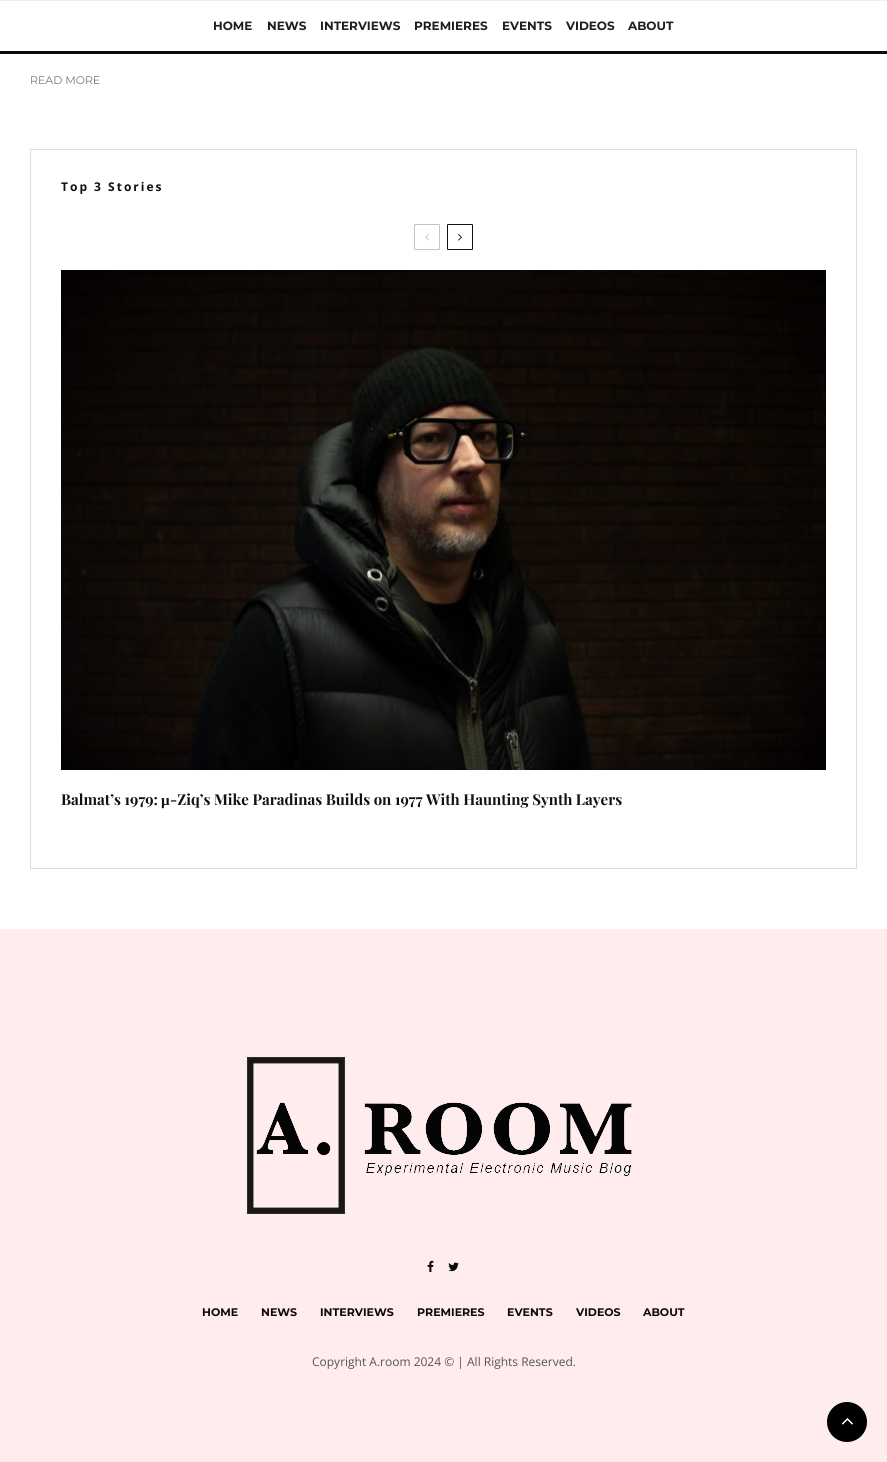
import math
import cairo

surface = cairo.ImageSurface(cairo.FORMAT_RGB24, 887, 1462)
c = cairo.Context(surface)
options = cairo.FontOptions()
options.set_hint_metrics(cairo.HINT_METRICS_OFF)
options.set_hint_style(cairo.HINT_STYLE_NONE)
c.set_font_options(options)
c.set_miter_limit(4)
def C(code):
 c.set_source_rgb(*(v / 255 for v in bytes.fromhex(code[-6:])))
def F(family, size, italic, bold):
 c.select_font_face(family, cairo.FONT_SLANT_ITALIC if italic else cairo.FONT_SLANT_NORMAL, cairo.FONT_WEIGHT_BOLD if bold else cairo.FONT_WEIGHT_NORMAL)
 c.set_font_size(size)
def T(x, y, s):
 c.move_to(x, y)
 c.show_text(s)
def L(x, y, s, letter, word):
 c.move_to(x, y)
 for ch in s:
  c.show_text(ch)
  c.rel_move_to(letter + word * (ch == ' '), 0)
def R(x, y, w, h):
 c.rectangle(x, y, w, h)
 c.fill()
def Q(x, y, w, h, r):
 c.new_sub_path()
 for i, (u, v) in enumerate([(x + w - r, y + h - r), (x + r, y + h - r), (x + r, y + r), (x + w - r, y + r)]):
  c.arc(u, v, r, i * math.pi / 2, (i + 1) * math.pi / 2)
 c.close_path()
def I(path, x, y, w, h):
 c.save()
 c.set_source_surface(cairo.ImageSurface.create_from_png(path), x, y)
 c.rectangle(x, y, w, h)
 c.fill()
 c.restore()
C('ffffff')
c.paint()
C('eeeeee')
R(0,0,887,1)
C('0a0a0a')
R(0,51,887,3)
F('Montserrat',12,0,1)
C('1e1e1e')
T(213,30,'HOME')
T(267,30,'NEWS')
T(320,30,'INTERVIEWS')
T(414,30,'PREMIERES')
T(502,30,'EVENTS')
T(566,30,'VIDEOS')
T(628,30,'ABOUT')
F('Montserrat',11,0,0)
C('767676')
T(30,84,'READ MORE')
c.rectangle(30.5,149.5,826,719)
C('dddddd')
c.set_line_width(1)
c.stroke()
F('Open Sans',12,0,1)
C('111111')
L(61,191,'Top 3 Stories',2,0)
Q(414.5,224.5,25,25,.5)
C('c4c4c4')
c.stroke()
I('1.png',425,234,4,7)
Q(447.5,224.5,25,25,.5)
C('111111')
c.stroke()
I('2.png',458,234,4,7)
I('3.png',61,270,765,500)
F('Playfair Display',15,0,1)
T(61,805,'Balmat’s 1979:')
F('Liberation Serif',15,0,1)
T(161,805,'µ')
F('Playfair Display',15,0,1)
T(170,805,'-Ziq’s Mike Paradinas Builds on 1977 With Haunting Synth Layers')
C('ffeded')
R(0,929,887,533)
I('4.png',247,1057,385,157)
I('5.png',427,1260,7,12)
I('6.png',448,1262,11,10)
F('Montserrat',11,0,1)
C('0a0a0a')
T(202,1316,'HOME')
T(261,1316,'NEWS')
T(320,1316,'INTERVIEWS')
T(417,1316,'PREMIERES')
T(507,1316,'EVENTS')
T(576,1316,'VIDEOS')
T(643,1316,'ABOUT')
F('Open Sans',12,0,0)
C('555555')
T(312,1366,'Copyright A.room 2024 © | All Rights Reserved.')
C('000000')
c.new_path()
c.arc(847,1422,20,0,2 * math.pi)
c.fill()
I('7.png',841,1418,12,7)
surface.write_to_png('o.png')
